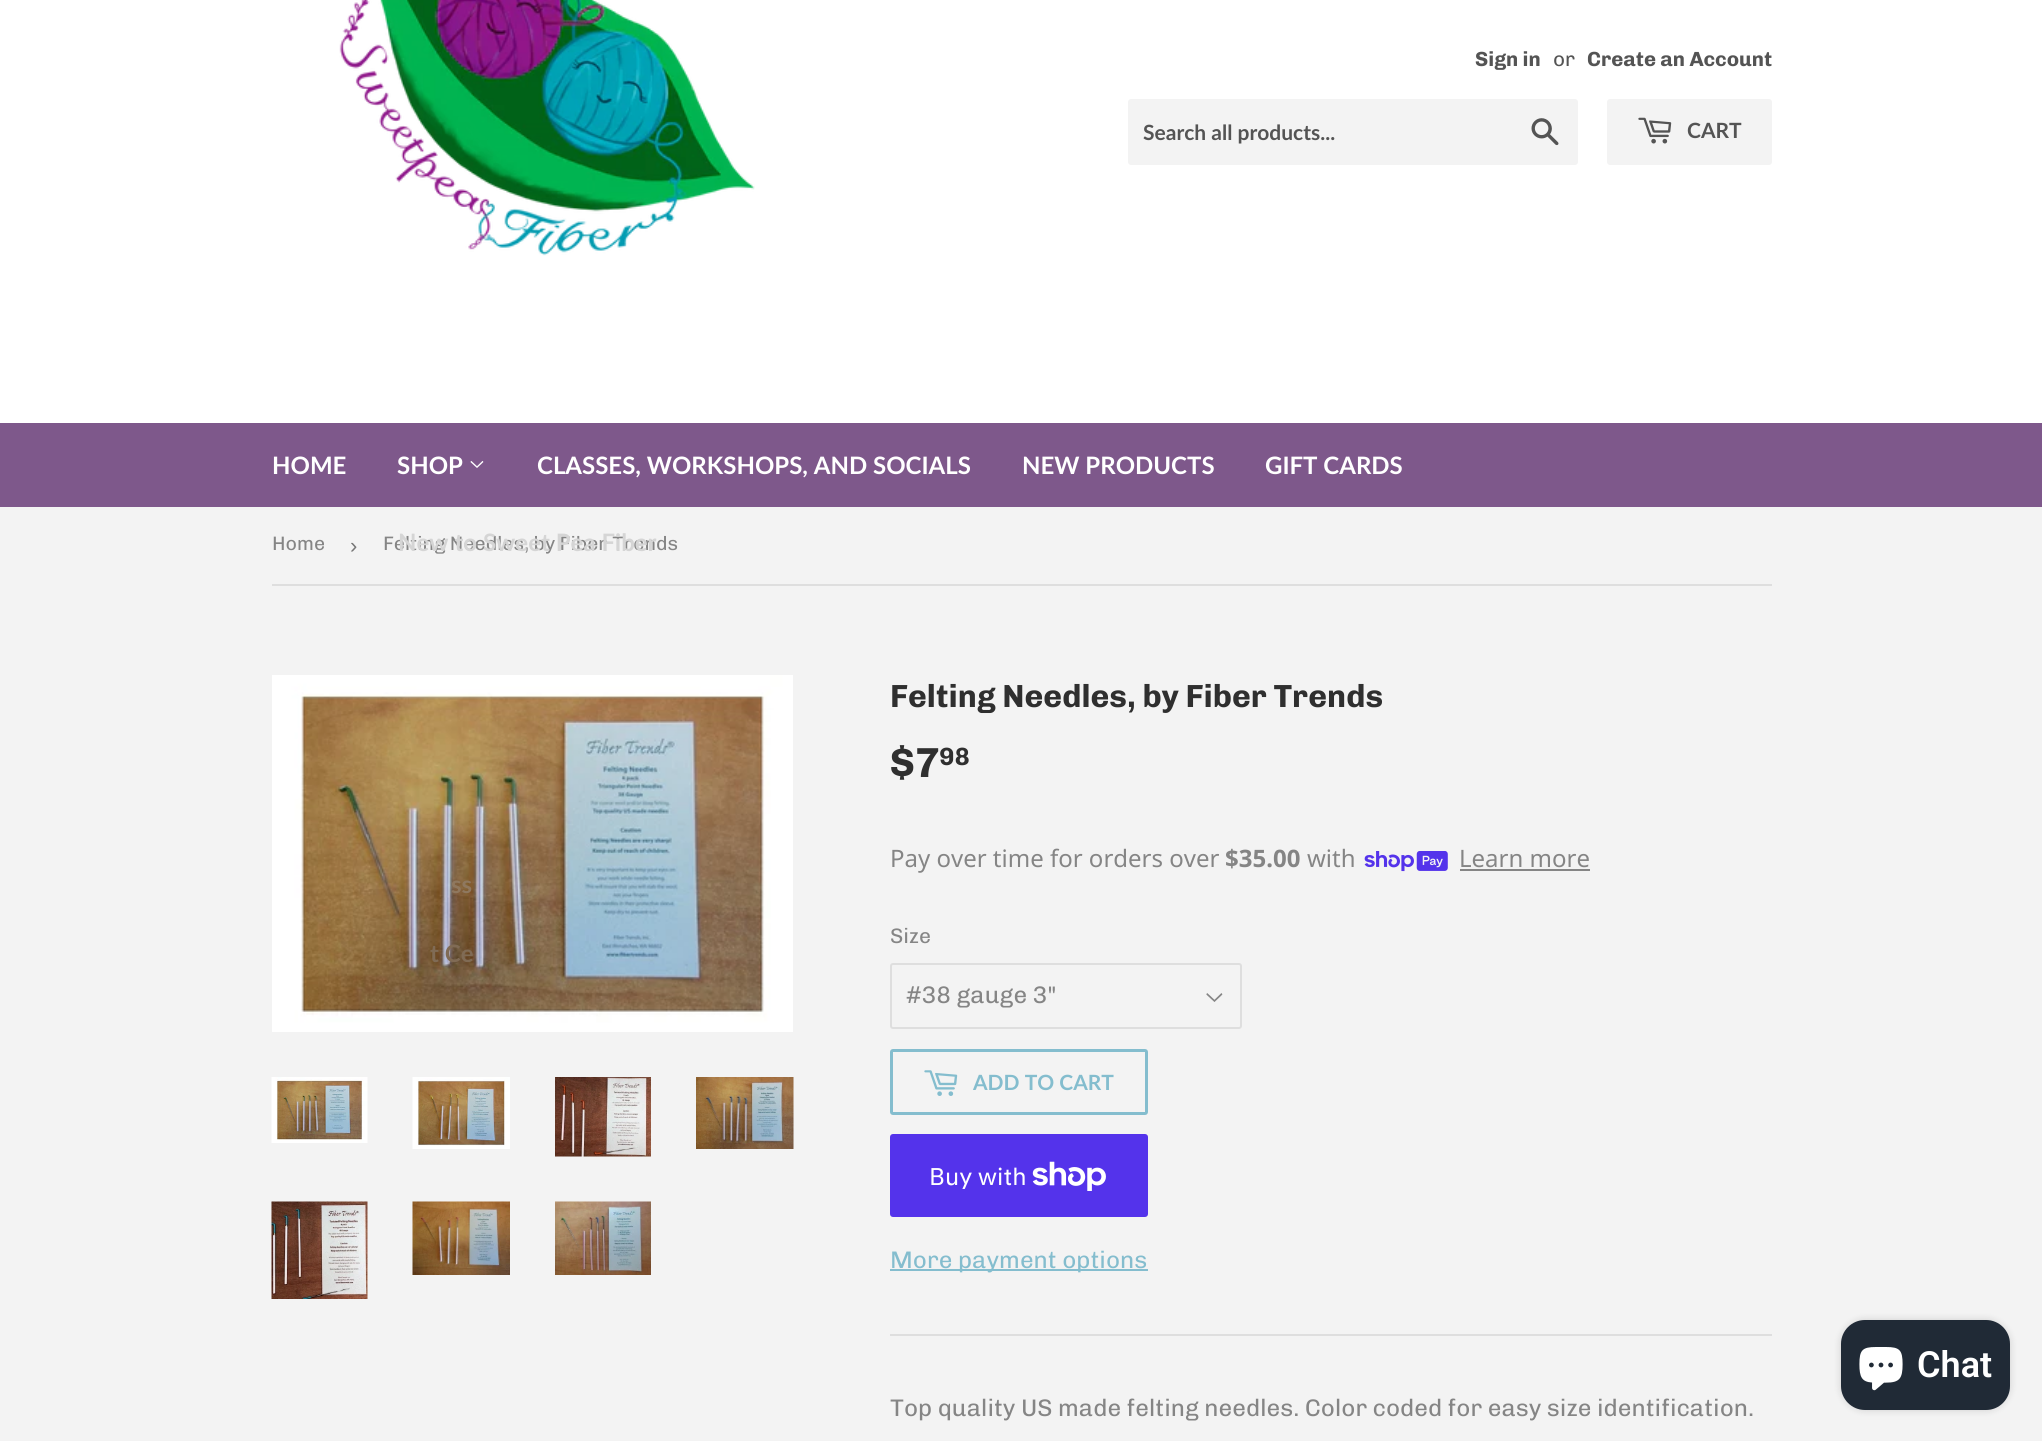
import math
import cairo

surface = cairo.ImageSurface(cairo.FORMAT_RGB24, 2042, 1441)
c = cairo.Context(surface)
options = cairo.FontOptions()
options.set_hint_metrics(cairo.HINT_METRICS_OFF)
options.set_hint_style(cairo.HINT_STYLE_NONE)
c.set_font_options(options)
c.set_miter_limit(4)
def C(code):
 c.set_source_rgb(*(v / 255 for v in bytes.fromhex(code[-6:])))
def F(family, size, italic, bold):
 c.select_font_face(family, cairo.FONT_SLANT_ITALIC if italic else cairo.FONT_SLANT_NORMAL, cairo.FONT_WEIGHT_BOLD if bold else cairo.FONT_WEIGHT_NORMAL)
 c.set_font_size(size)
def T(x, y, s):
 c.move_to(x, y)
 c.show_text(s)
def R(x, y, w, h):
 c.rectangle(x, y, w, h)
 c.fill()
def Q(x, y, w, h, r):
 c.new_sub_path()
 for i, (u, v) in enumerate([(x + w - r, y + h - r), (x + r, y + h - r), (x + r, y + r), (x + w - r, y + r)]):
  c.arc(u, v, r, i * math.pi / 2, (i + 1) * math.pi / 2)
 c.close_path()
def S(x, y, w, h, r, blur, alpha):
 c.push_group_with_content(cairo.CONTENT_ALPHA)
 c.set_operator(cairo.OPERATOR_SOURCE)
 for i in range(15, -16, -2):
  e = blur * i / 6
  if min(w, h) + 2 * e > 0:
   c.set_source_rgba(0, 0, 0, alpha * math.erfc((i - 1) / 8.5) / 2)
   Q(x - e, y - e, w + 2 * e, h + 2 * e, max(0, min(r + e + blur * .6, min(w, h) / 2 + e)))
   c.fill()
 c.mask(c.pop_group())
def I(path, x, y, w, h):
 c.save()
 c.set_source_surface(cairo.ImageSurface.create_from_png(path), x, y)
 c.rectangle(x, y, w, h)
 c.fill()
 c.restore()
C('f3f3f3')
c.paint()
C('ffffff')
R(0,0,2042,423)
I('1.png',339,0,416,256)
F('Chivo',20.5,0,1)
C('545454')
T(1475,66,'Sign in')
F('Chivo',20.5,0,0)
T(1553,66,'or')
F('Chivo',20.5,0,1)
T(1587,66,'Create an Account')
C('f3f3f3')
Q(1128,99,450,66,3)
c.fill()
F('Lato',21,0,1)
C('545454')
T(1143,140,'Search all products...')
I('2.png',1531,118,28,28)
C('f3f3f3')
Q(1607,99,165,66,3)
c.fill()
I('3.png',1638,117,34,27)
C('545454')
T(1687,138,'CART')
C('7e588b')
R(0,423,2042,84)
F('Lato',24,0,1)
C('ffffff')
T(272,474,'HOME')
T(397,474,'SHOP')
I('4.png',470,461,14,7)
F('Chivo',19.5,0,0)
C('858585')
T(383,550,'Felting Needles, by Fiber Trends')
F('Lato',24,0,1)
C('d5d5d5')
T(398,551,'New to Sweet Pea Fiber')
I('5.png',272,675,521,357)
C('8f785f')
T(451,893,'ss')
C('806b55')
T(430,962,'t Ce')
C('ffffff')
T(537,474,'CLASSES, WORKSHOPS, AND SOCIALS')
T(1022,474,'NEW PRODUCTS')
T(1265,474,'GIFT CARDS')
C('dedede')
R(272,584,1500,2)
F('Chivo',19.5,0,0)
C('858585')
T(272,550,'Home')
F('Liberation Sans',22,0,0)
C('767676')
T(350,553,'›')
I('6.png',271,1077,97,66)
I('7.png',412,1077,98,72)
I('8.png',555,1077,96,80)
I('9.png',696,1077,98,72)
I('10.png',271,1201,97,98)
I('11.png',412,1201,98,74)
I('12.png',555,1201,96,74)
F('Chivo',32,0,1)
C('2f2f2f')
T(890,707,'Felting Needles, by Fiber Trends')
F('Chivo',42,0,1)
T(890,777,'$7')
F('Chivo',25,0,1)
T(939,765,'98')
F('Noto Sans',24,0,0)
C('858585')
T(890,867,'Pay over time for orders over')
F('Noto Sans',24,0,1)
T(1225,867,'$35.00')
F('Noto Sans',24,0,0)
T(1307,867,'with')
I('13.png',1364,851,84,21)
T(1459,867,'Learn more')
R(1460,869,130,2)
F('Chivo',21,0,0)
T(890,943,'Size')
I('14.png',1206,993,17,9)
Q(891,964,350,64,2)
C('dedede')
c.stroke()
F('Chivo',24,0,0)
C('858585')
T(906,1003,'#38 gauge 3"')
Q(891.5,1050.5,255,63,1.5)
C('84bdce')
c.set_line_width(3)
c.stroke()
I('15.png',924,1070,34,26)
F('Lato',21,0,1)
T(973,1090,'ADD TO CART')
C('5433eb')
Q(890,1134,258,83,3)
c.fill()
F('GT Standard',24,0,0)
C('ffffff')
T(929,1185,'Buy with')
I('16.png',1032,1161,74,30)
C('84bdce')
R(890,1269,258,2)
F('Chivo',24,0,0)
T(890,1268,'More payment options')
C('dedede')
R(890,1334,882,2)
C('858585')
T(890,1416,'Top quality US made felting needles. Color coded for easy size identification.')
C('000000')
S(1841,1320,169,90,24,4,.15)
C('202a36')
Q(1841,1320,169,90,24)
c.fill()
I('17.png',1859,1347,44,44)
F('Roboto SemiBold',36,0,0)
C('ffffff')
T(1917,1377,'Chat')
surface.write_to_png('o.png')
